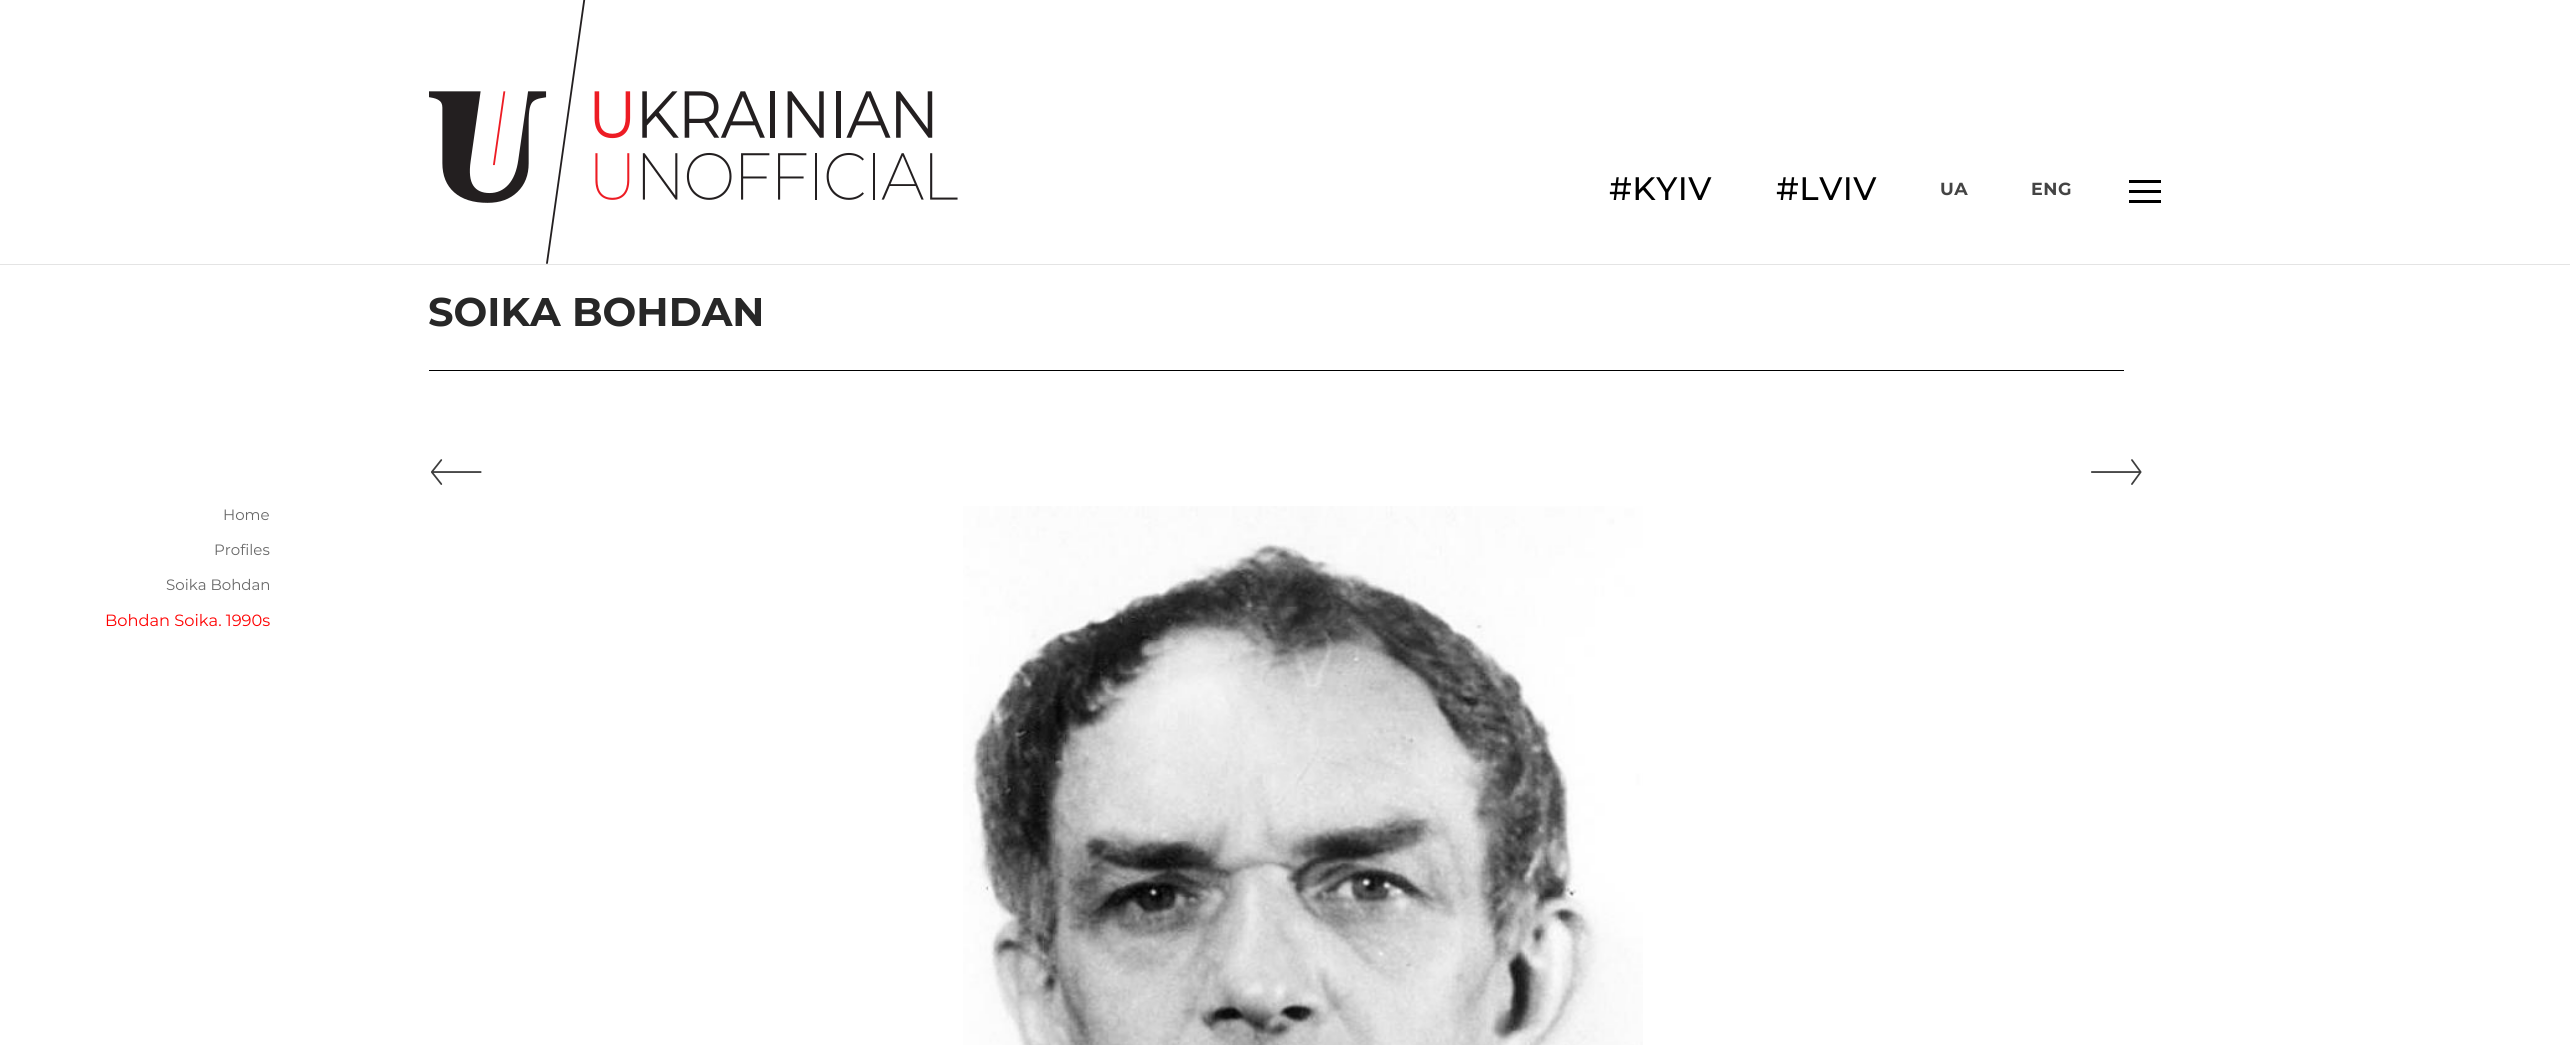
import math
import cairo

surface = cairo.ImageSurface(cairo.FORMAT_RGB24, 2570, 1045)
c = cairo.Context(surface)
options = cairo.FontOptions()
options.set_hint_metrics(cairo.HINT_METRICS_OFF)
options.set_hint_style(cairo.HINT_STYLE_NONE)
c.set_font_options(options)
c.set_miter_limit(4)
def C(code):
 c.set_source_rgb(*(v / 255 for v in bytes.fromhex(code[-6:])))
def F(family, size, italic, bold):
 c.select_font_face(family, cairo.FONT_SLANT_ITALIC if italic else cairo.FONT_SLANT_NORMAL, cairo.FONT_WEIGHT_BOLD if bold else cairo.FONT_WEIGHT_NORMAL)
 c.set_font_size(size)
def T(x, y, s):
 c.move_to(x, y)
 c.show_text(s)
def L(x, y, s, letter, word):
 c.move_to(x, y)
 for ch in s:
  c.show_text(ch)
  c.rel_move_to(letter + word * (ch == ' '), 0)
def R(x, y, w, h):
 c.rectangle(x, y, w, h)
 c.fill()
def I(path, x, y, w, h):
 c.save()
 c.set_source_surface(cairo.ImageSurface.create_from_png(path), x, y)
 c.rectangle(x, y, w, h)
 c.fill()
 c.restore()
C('ffffff')
c.paint()
C('e4e4e4')
R(0,264,2570,1)
I('1.png',429,0,529,264)
F('Montserrat Medium',32.5,0,0)
C('000000')
L(1609,200,'#KYIV',.5,0)
L(1776,200,'#LVIV',.5,0)
F('Montserrat',17.5,0,1)
C('444444')
L(1940,195,'UA',.5,0)
L(2031,195,'ENG',.5,0)
C('000000')
R(2129,190,32,3)
R(2129,180,32,3)
R(2129,200,32,3)
F('Montserrat',40,0,1)
C('272727')
T(428,326,'SOIKA BOHDAN')
C('000000')
R(429,370,1695,1)
F('Montserrat',15,0,0)
C('696969')
T(223,520,'Home')
T(214,555,'Profiles')
T(166,590,'Soika Bohdan')
F('Montserrat',16.25,0,0)
C('ff0000')
T(105,626,'Bohdan Soika. 1990s')
I('2.png',431,459,51,26)
I('3.png',2091,459,51,26)
I('4.png',963,506,680,539)
surface.write_to_png('o.png')
